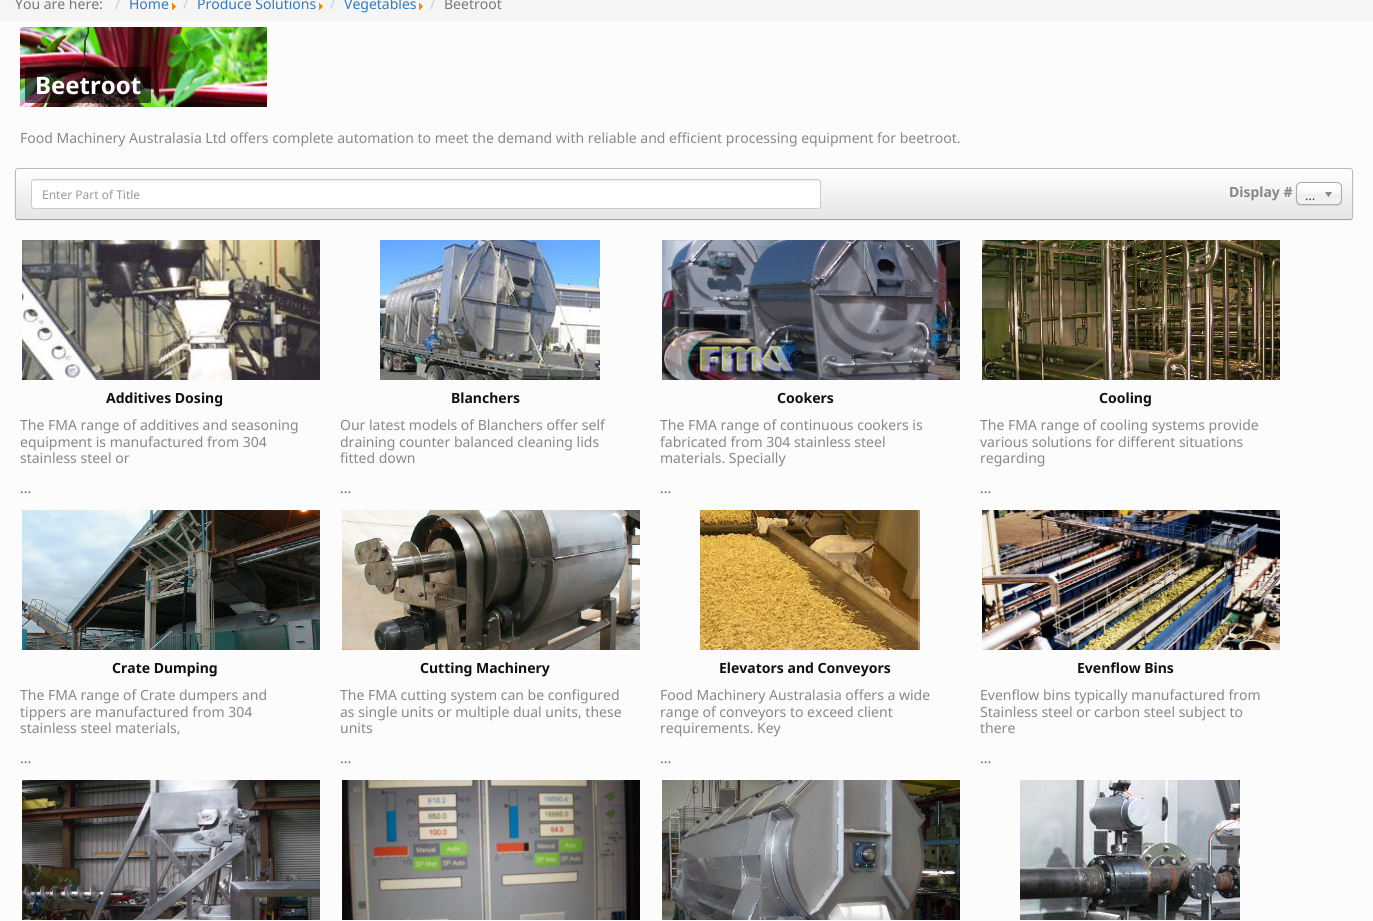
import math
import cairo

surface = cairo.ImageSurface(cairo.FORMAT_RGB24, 1373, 921)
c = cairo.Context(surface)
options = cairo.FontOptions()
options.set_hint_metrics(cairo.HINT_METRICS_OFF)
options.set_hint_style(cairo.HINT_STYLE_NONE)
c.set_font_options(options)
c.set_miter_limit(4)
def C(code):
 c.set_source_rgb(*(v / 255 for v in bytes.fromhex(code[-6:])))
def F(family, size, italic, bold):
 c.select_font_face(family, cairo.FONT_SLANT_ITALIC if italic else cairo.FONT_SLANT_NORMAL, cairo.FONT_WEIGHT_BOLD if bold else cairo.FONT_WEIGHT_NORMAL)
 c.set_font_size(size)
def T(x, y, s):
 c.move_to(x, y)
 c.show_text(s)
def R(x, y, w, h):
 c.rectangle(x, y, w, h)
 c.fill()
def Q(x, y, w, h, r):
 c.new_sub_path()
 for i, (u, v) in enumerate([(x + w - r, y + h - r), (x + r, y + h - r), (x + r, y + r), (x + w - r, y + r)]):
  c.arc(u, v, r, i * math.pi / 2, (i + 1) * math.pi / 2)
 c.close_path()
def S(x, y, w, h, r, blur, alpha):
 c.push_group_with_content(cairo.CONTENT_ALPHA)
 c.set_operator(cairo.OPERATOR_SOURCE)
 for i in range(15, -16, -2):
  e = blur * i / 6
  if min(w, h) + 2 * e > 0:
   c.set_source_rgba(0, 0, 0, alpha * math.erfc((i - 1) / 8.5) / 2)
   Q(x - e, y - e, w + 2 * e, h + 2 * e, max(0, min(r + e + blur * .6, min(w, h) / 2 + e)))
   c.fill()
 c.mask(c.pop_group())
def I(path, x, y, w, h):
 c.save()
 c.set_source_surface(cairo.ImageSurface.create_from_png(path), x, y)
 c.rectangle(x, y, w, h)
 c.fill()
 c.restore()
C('fcfcfc')
c.paint()
C('f5f5f5')
Q(0,-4,1373,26,4)
c.fill()
F('Noto Sans',14,0,0)
C('777777')
T(15,9,'You are here:')
C('cccccc')
T(115,9,'/')
C('337ab7')
T(129,9,'Home')
I('1.png',172,3,4,7)
C('cccccc')
T(183,9,'/')
C('337ab7')
T(197,9,'Produce Solutions')
I('1.png',319,3,4,7)
C('cccccc')
T(330,9,'/')
C('337ab7')
T(344,9,'Vegetables')
I('1.png',419,3,4,7)
C('cccccc')
T(430,9,'/')
C('777777')
T(444,9,'Beetroot')
I('2.png',20,27,247,80)
c.set_source_rgba(0,0,0,0.6)
Q(25,67,126,36,2)
c.fill()
F('Noto Sans',24,0,1)
C('ffffff')
T(35,94,'Beetroot')
F('Noto Sans',14,0,0)
C('888889')
T(20,143,'Food Machinery Australasia Ltd offers complete automation to meet the demand with reliable and efficient processing equipment for beetroot.')
C('000000')
S(15,169,1338,52,3,1,.05)
C('f5f5f5')
Q(15,168,1338,52,3)
c.fill()
c.save()
Q(15,168,1338,52,3)
c.clip()
gradient = cairo.LinearGradient(684,169,684,219)
gradient.add_color_stop_rgba(0,1,1,1,1)
gradient.add_color_stop_rgba(1,0.898,0.898,0.898,1)
c.set_source(gradient)
R(15,169,1338,50)
c.restore()
c.new_path()
c.move_to(1352,219)
c.line_to(1350,219.5)
c.line_to(18,219.5)
c.line_to(16,219)
C('a2a2a2')
c.set_line_width(1)
c.stroke()
c.new_path()
c.move_to(16,219)
c.line_to(15.5,217)
c.line_to(15.5,170.5)
c.curve_to(16,169.5,17,168.5,18,168.5)
c.line_to(1350,168.5)
c.curve_to(1351,168.5,1352,169.5,1352.5,170.5)
c.line_to(1352.5,217)
c.line_to(1352,219)
C('bbbbbb')
c.stroke()
C('ffffff')
Q(31,179,790,30,3)
c.fill()
C('ececec')
c.new_path()
c.move_to(34,181)
c.line_to(818,181)
c.curve_to(819,181,820,182,820,183)
c.curve_to(820,182,820,180,818,180)
c.line_to(34,180)
c.curve_to(32,180,32,182,32,183)
c.curve_to(32,182,33,181,34,181)
c.close_path()
c.fill()
Q(31.5,179.5,789,29,2.5)
C('cccccc')
c.stroke()
F('Noto Sans',12,0,0)
C('999999')
T(42,199,'Enter Part of Title')
F('Noto Sans',14,0,1)
C('888889')
T(1229,197,'Display #')
C('000000')
S(1296,183,46,23,5,.5,.1)
gradient = cairo.LinearGradient(1319,183,1319,204)
gradient.add_color_stop_rgba(.2,1,1,1,1)
gradient.add_color_stop_rgba(.5,0.965,0.965,0.965,1)
gradient.add_color_stop_rgba(.52,0.933,0.933,0.933,1)
gradient.add_color_stop_rgba(1,0.957,0.957,0.957,1)
c.set_source(gradient)
Q(1297,183,44,21,4)
c.fill()
Q(1296.5,182.5,45,22,4.5)
C('aaaaaa')
c.stroke()
I('3.png',1325,192,7,6)
F('Noto Sans',13,0,0)
C('444444')
T(1305,200,'…')
I('4.png',22,240,298,140)
F('Noto Sans',14,0,1)
C('111111')
T(106,403,'Additives Dosing')
F('Noto Sans',14,0,0)
C('888889')
T(20,430,'The FMA range of additives and seasoning')
T(20,447,'equipment is manufactured from 304')
T(20,463,'stainless steel or')
C('337ab7')
T(20,493,'...')
I('5.png',380,240,220,140)
F('Noto Sans',14,0,1)
C('111111')
T(451,403,'Blanchers')
F('Noto Sans',14,0,0)
C('888889')
T(340,430,'Our latest models of Blanchers offer self')
T(340,447,'draining counter balanced cleaning lids')
T(340,463,'fitted down')
C('337ab7')
T(340,493,'...')
I('6.png',662,240,298,140)
F('Noto Sans',14,0,1)
C('111111')
T(777,403,'Cookers')
F('Noto Sans',14,0,0)
C('888889')
T(660,430,'The FMA range of continuous cookers is')
T(660,447,'fabricated from 304 stainless steel')
T(660,463,'materials. Specially')
C('337ab7')
T(660,493,'...')
I('7.png',982,240,298,140)
F('Noto Sans',14,0,1)
C('111111')
T(1099,403,'Cooling')
F('Noto Sans',14,0,0)
C('888889')
T(980,430,'The FMA range of cooling systems provide')
T(980,447,'various solutions for different situations')
T(980,463,'regarding')
C('337ab7')
T(980,493,'...')
I('8.png',22,510,298,140)
F('Noto Sans',14,0,1)
C('111111')
T(112,673,'Crate Dumping')
F('Noto Sans',14,0,0)
C('888889')
T(20,700,'The FMA range of Crate dumpers and')
T(20,717,'tippers are manufactured from 304')
T(20,733,'stainless steel materials,')
C('337ab7')
T(20,763,'...')
I('9.png',342,510,298,140)
F('Noto Sans',14,0,1)
C('111111')
T(420,673,'Cutting Machinery')
F('Noto Sans',14,0,0)
C('888889')
T(340,700,'The FMA cutting system can be configured')
T(340,717,'as single units or multiple dual units, these')
T(340,733,'units')
C('337ab7')
T(340,763,'...')
I('10.png',700,510,220,140)
F('Noto Sans',14,0,1)
C('111111')
T(719,673,'Elevators and Conveyors')
F('Noto Sans',14,0,0)
C('888889')
T(660,700,'Food Machinery Australasia offers a wide')
T(660,717,'range of conveyors to exceed client')
T(660,733,'requirements. Key')
C('337ab7')
T(660,763,'...')
I('11.png',982,510,298,140)
F('Noto Sans',14,0,1)
C('111111')
T(1077,673,'Evenflow Bins')
F('Noto Sans',14,0,0)
C('888889')
T(980,700,'Evenflow bins typically manufactured from')
T(980,717,'Stainless steel or carbon steel subject to')
T(980,733,'there')
C('337ab7')
T(980,763,'...')
I('12.png',22,780,298,140)
I('13.png',342,780,298,140)
I('14.png',662,780,298,140)
I('15.png',1020,780,220,140)
surface.write_to_png('o.png')
